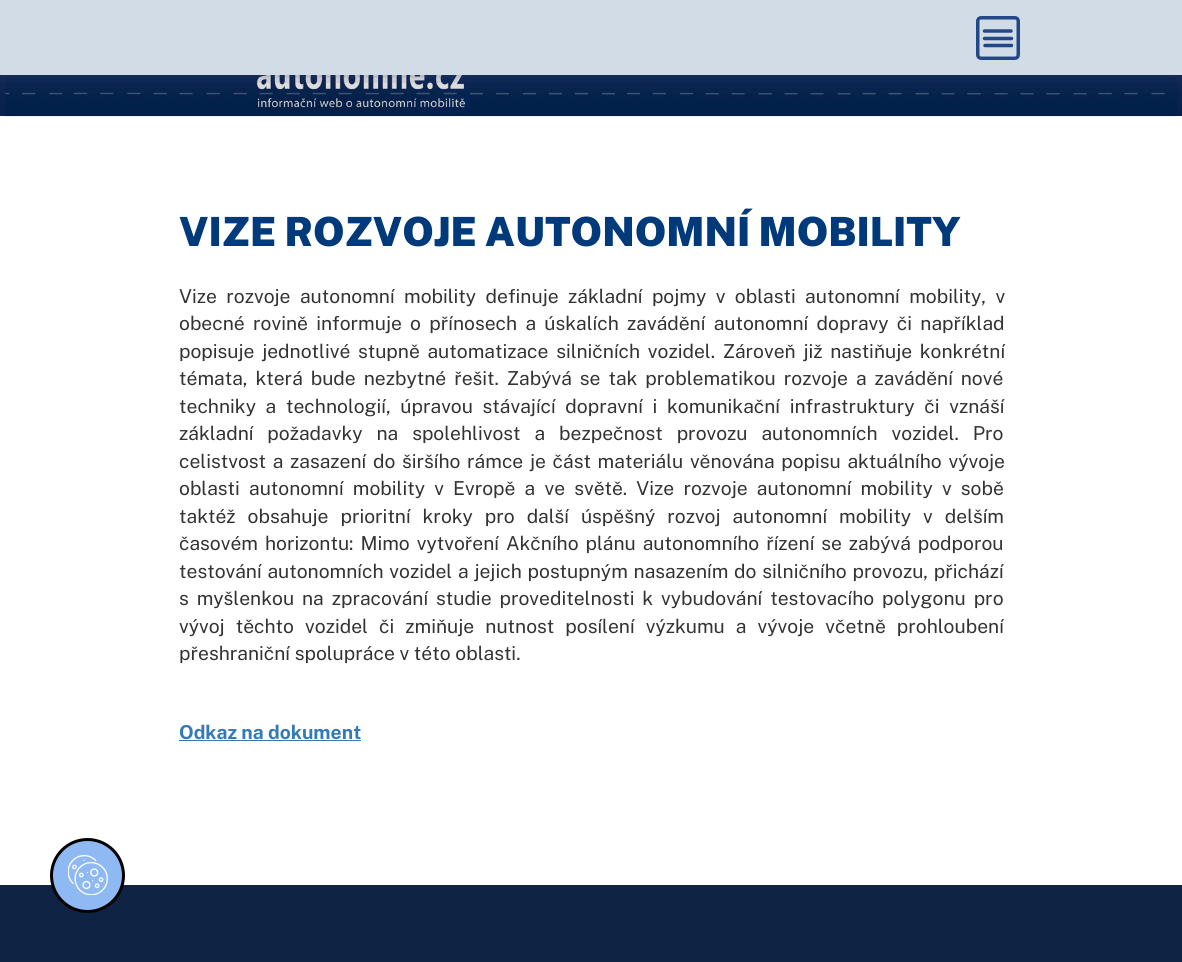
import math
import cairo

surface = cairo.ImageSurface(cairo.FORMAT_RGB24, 1182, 962)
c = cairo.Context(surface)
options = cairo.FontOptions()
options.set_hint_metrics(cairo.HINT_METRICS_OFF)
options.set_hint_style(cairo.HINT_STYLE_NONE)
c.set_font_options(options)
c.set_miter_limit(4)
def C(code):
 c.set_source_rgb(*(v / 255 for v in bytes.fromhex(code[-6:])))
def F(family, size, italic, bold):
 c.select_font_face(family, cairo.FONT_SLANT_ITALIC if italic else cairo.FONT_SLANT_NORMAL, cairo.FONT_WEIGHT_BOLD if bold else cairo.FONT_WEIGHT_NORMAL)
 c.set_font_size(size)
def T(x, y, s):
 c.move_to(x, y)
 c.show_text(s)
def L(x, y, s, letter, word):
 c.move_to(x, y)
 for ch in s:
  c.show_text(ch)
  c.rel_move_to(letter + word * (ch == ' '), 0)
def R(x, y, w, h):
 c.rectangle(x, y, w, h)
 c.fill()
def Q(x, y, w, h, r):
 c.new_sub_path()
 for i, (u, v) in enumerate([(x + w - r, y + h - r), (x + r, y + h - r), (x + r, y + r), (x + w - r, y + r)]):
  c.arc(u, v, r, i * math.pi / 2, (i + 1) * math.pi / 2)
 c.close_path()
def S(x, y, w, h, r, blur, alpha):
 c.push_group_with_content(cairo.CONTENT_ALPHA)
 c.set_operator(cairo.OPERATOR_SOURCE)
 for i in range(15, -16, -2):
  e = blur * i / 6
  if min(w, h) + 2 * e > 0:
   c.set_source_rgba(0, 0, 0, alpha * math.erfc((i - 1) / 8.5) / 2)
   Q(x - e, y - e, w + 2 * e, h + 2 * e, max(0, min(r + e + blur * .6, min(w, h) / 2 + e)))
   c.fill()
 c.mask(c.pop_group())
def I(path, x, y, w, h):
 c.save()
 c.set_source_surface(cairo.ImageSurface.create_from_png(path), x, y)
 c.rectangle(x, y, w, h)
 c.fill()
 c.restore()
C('ffffff')
c.paint()
C('08214e')
R(0,75,1182,41)
I('1.png',5,75,1173,42)
C('3e4173')
S(-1,0,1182,75,0,16,.67)
C('d2dce6')
R(0,0,1182,75)
c.new_path()
c.move_to(984.5,31)
c.line_to(1011,31)
c.move_to(984.5,38.5)
c.line_to(1011.5,38.5)
c.move_to(985,45.5)
c.line_to(1011.5,45.5)
C('234888')
c.set_line_width(3.5)
c.set_line_cap(cairo.LINE_CAP_ROUND)
c.stroke()
Q(977.75,17.75,40.5,40.5,3.25)
c.set_line_cap(cairo.LINE_CAP_BUTT)
c.stroke()
F('Public Sans Black',40.25,0,0)
C('003a7a')
T(179,246,'VIZE ROZVOJE AUTONOMNÍ MOBILITY')
F('Public Sans',19.25,0,0)
C('333333')
L(179,303,'Vize rozvoje autonomní mobility definuje základní pojmy v oblasti autonomní mobility, v',0,4.75)
L(179,330,'obecné rovině informuje o přínosech a úskalích zavádění autonomní dopravy či například',0,3.6)
L(179,358,'popisuje jednotlivé stupně automatizace silničních vozidel. Zároveň již nastiňuje konkrétní',0,3)
L(179,385,'témata, která bude nezbytné řešit. Zabývá se tak problematikou rozvoje a zavádění nové',0,3.25)
L(179,413,'techniky a technologií, úpravou stávající dopravní i komunikační infrastruktury či vznáší',0,5)
L(179,440,'základní požadavky na spolehlivost a bezpečnost provozu autonomních vozidel. Pro',0,9.25)
L(179,468,'celistvost a zasazení do širšího rámce je část materiálu věnována popisu aktuálního vývoje',0,2)
L(179,495,'oblasti autonomní mobility v Evropě a ve světě. Vize rozvoje autonomní mobility v sobě',0,4.5)
L(179,523,'taktéž obsahuje prioritní kroky pro další úspěšný rozvoj autonomní mobility v delším',0,7.25)
L(179,550,'časovém horizontu: Mimo vytvoření Akčního plánu autonomního řízení se zabývá podporou',0,2.25)
L(179,578,'testování autonomních vozidel a jejich postupným nasazením do silničního provozu, přichází',0,1.1)
L(179,605,'s myšlenkou na zpracování studie proveditelnosti k vybudování testovacího polygonu pro',0,3.25)
L(179,633,'vývoj těchto vozidel či zmiňuje nutnost posílení výzkumu a vývoje včetně prohloubení',0,6.4)
T(179,660,'přeshraniční spolupráce v této oblasti.')
F('Public Sans',19.25,0,1)
C('337ab7')
T(179,739,'Odkaz na dokument')
R(179,740,182,1)
C('0f2344')
R(0,885,1182,77)
C('8eb9f3')
c.new_path()
c.arc(87.5,875.5,36,0,2 * math.pi)
c.fill_preserve()
C('000000')
c.set_line_width(3)
c.stroke()
I('2.png',68,855,40,40)
surface.write_to_png('o.png')
